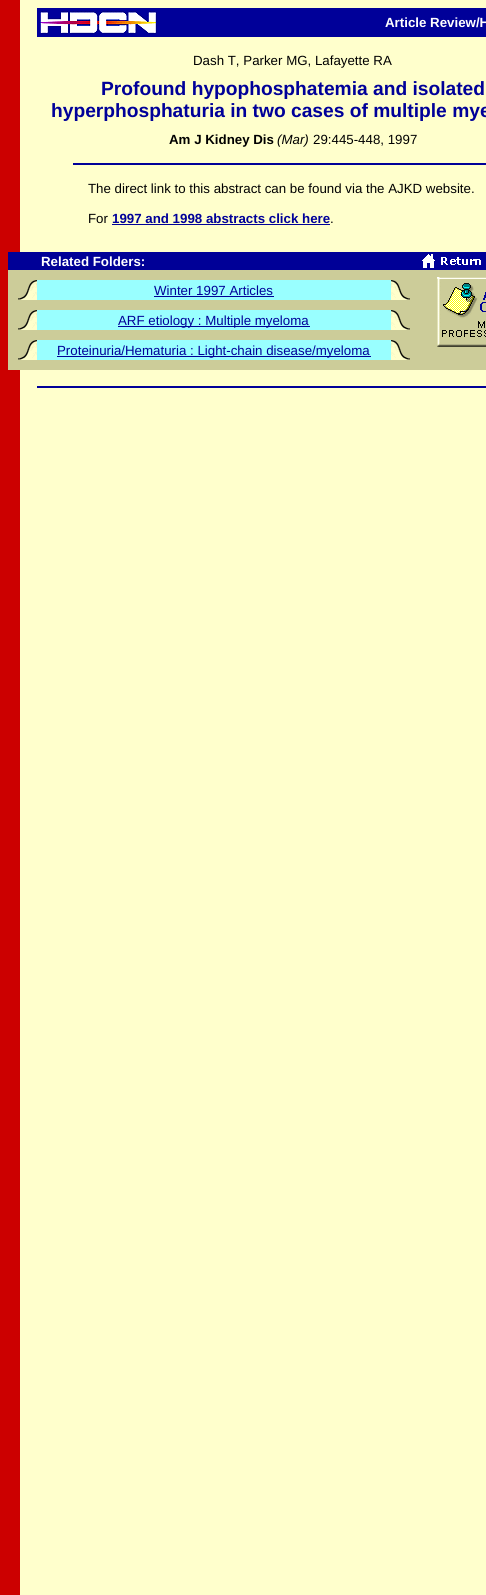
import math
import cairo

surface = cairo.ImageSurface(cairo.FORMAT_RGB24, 486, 1595)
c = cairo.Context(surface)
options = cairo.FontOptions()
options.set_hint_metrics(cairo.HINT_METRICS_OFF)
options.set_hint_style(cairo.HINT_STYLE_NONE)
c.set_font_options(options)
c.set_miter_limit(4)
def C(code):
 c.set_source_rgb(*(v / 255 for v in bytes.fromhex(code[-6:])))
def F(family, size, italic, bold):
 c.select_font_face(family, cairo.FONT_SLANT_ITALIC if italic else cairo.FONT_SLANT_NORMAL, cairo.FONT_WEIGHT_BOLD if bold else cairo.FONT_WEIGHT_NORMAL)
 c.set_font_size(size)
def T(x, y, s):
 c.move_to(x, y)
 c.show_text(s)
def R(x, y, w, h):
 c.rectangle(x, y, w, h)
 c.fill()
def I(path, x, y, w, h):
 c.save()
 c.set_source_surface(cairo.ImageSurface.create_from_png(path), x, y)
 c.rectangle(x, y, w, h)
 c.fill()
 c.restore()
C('ffffcc')
c.paint()
C('cc0000')
R(0,0,20,1595)
I('1.png',37,8,123,29)
C('000099')
R(160,8,326,29)
F('Liberation Sans',13.3,0,1)
C('ffffff')
T(385,27,'Article Review/H')
F('Liberation Sans',13.3,0,0)
C('000000')
T(193,65,'Dash T, Parker MG, Lafayette RA')
F('Liberation Sans',19.2,0,1)
C('000099')
T(101,95,'Profound hypophosphatemia and isolated')
T(51,117,'hyperphosphaturia in two cases of multiple mye')
F('Liberation Sans',13.3,0,1)
C('000000')
T(169,144,'Am J Kidney Dis')
F('Liberation Sans',13.3,1,0)
T(277,144,'(Mar)')
F('Liberation Sans',13.3,0,0)
T(313,144,'29:445-448, 1997')
C('000099')
R(73,163,413,2)
C('000000')
T(88,193,'The direct link to this abstract can be found via the AJKD website.')
T(88,223,'For')
F('Liberation Sans',13.3,0,1)
C('000099')
T(112,223,'1997 and 1998 abstracts click here')
F('Liberation Sans',13.3,0,0)
C('000000')
T(330,223,'.')
C('000099')
R(112,224,218,1)
C('000097')
R(8,252,412,18)
F('Liberation Sans',13.3,0,1)
C('ffffff')
T(41,266,'Related Folders:')
I('2.png',420,252,66,18)
C('cccc99')
R(8,270,478,100)
I('3.png',18,280,19,20)
C('99ffff')
R(37,280,354,20)
F('Liberation Sans',13.3,0,0)
C('000099')
T(154,295,'Winter 1997 Articles')
R(154,296,120,1)
I('4.png',391,280,19,20)
I('3.png',18,310,19,20)
C('99ffff')
R(37,310,354,20)
C('000099')
R(118,326,192,1)
T(118,325,'ARF etiology : Multiple myeloma')
I('4.png',391,310,19,20)
I('3.png',18,340,19,20)
C('99ffff')
R(37,340,354,20)
C('000099')
R(57,356,314,1)
T(57,355,'Proteinuria/Hematuria : Light-chain disease/myeloma')
I('4.png',391,340,19,20)
I('5.png',437,277,49,70)
R(37,386,449,2)
surface.write_to_png('o.png')
